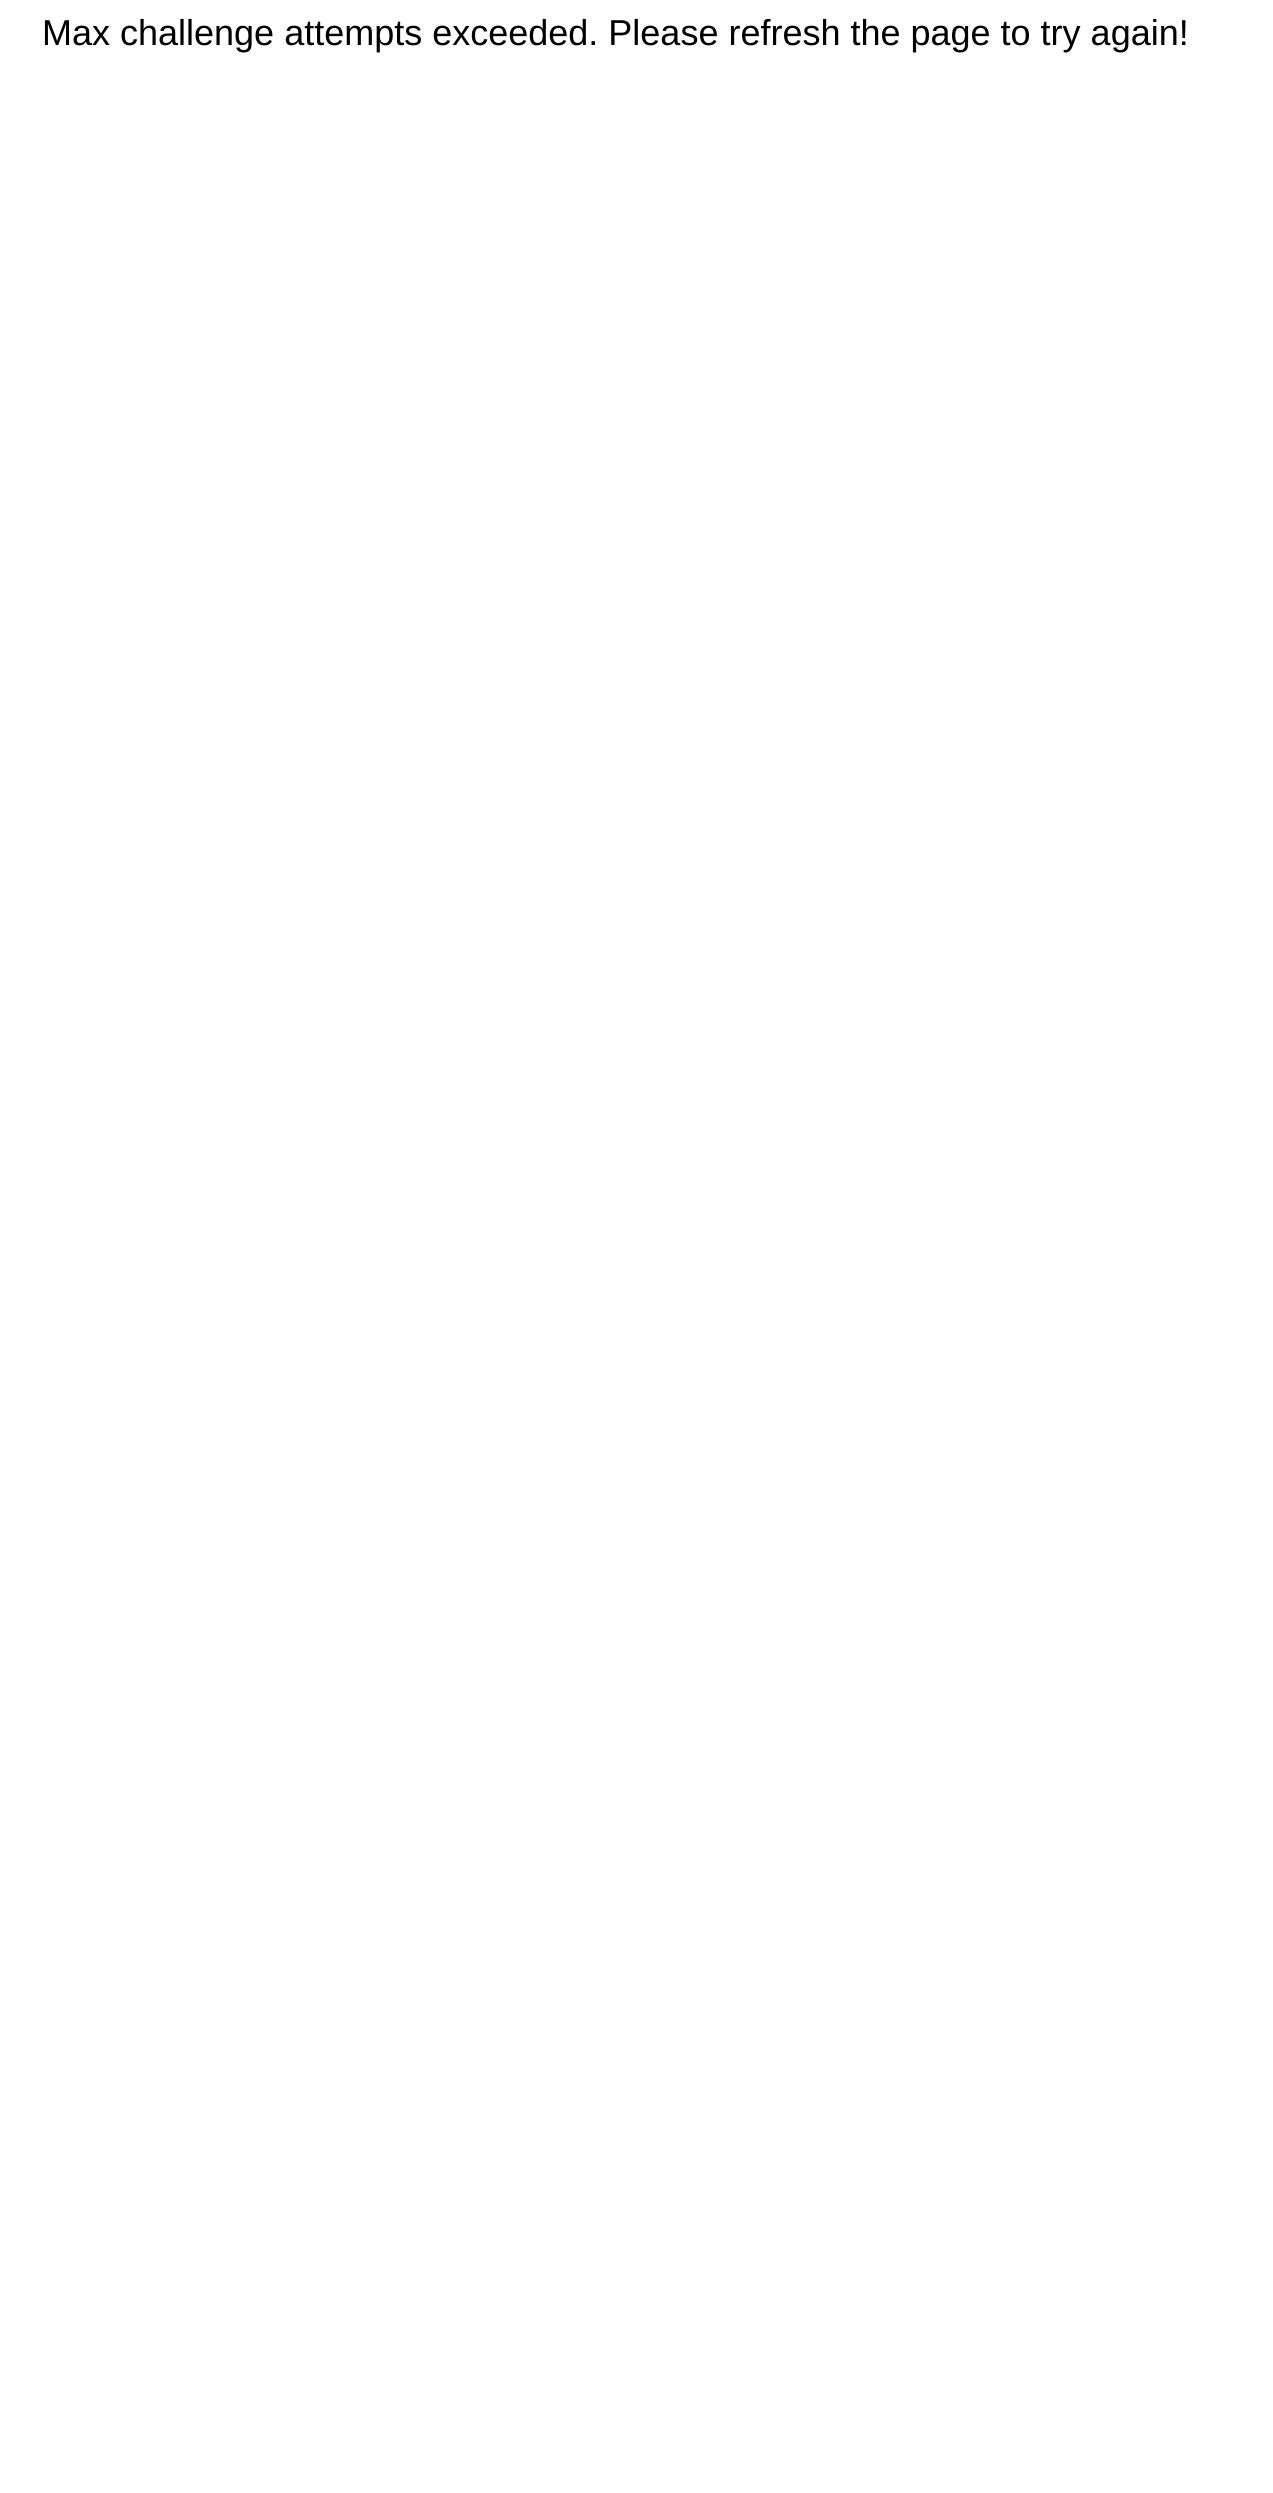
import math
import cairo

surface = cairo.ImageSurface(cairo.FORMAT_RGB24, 1273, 2493)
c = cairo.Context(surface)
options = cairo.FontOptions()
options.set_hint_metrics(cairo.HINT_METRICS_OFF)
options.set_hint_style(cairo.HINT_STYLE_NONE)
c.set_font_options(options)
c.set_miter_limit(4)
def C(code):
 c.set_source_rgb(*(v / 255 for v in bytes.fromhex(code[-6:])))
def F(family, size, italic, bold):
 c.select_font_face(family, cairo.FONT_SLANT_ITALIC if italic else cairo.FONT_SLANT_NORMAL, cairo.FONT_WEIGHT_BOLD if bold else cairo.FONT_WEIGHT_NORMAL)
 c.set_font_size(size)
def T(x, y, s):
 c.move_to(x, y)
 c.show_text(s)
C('ffffff')
c.paint()
F('Liberation Sans',36,0,0)
C('000000')
T(42,45,'Max challenge attempts exceeded. Please refresh the page to try again!')
surface.write_to_png('o.png')
